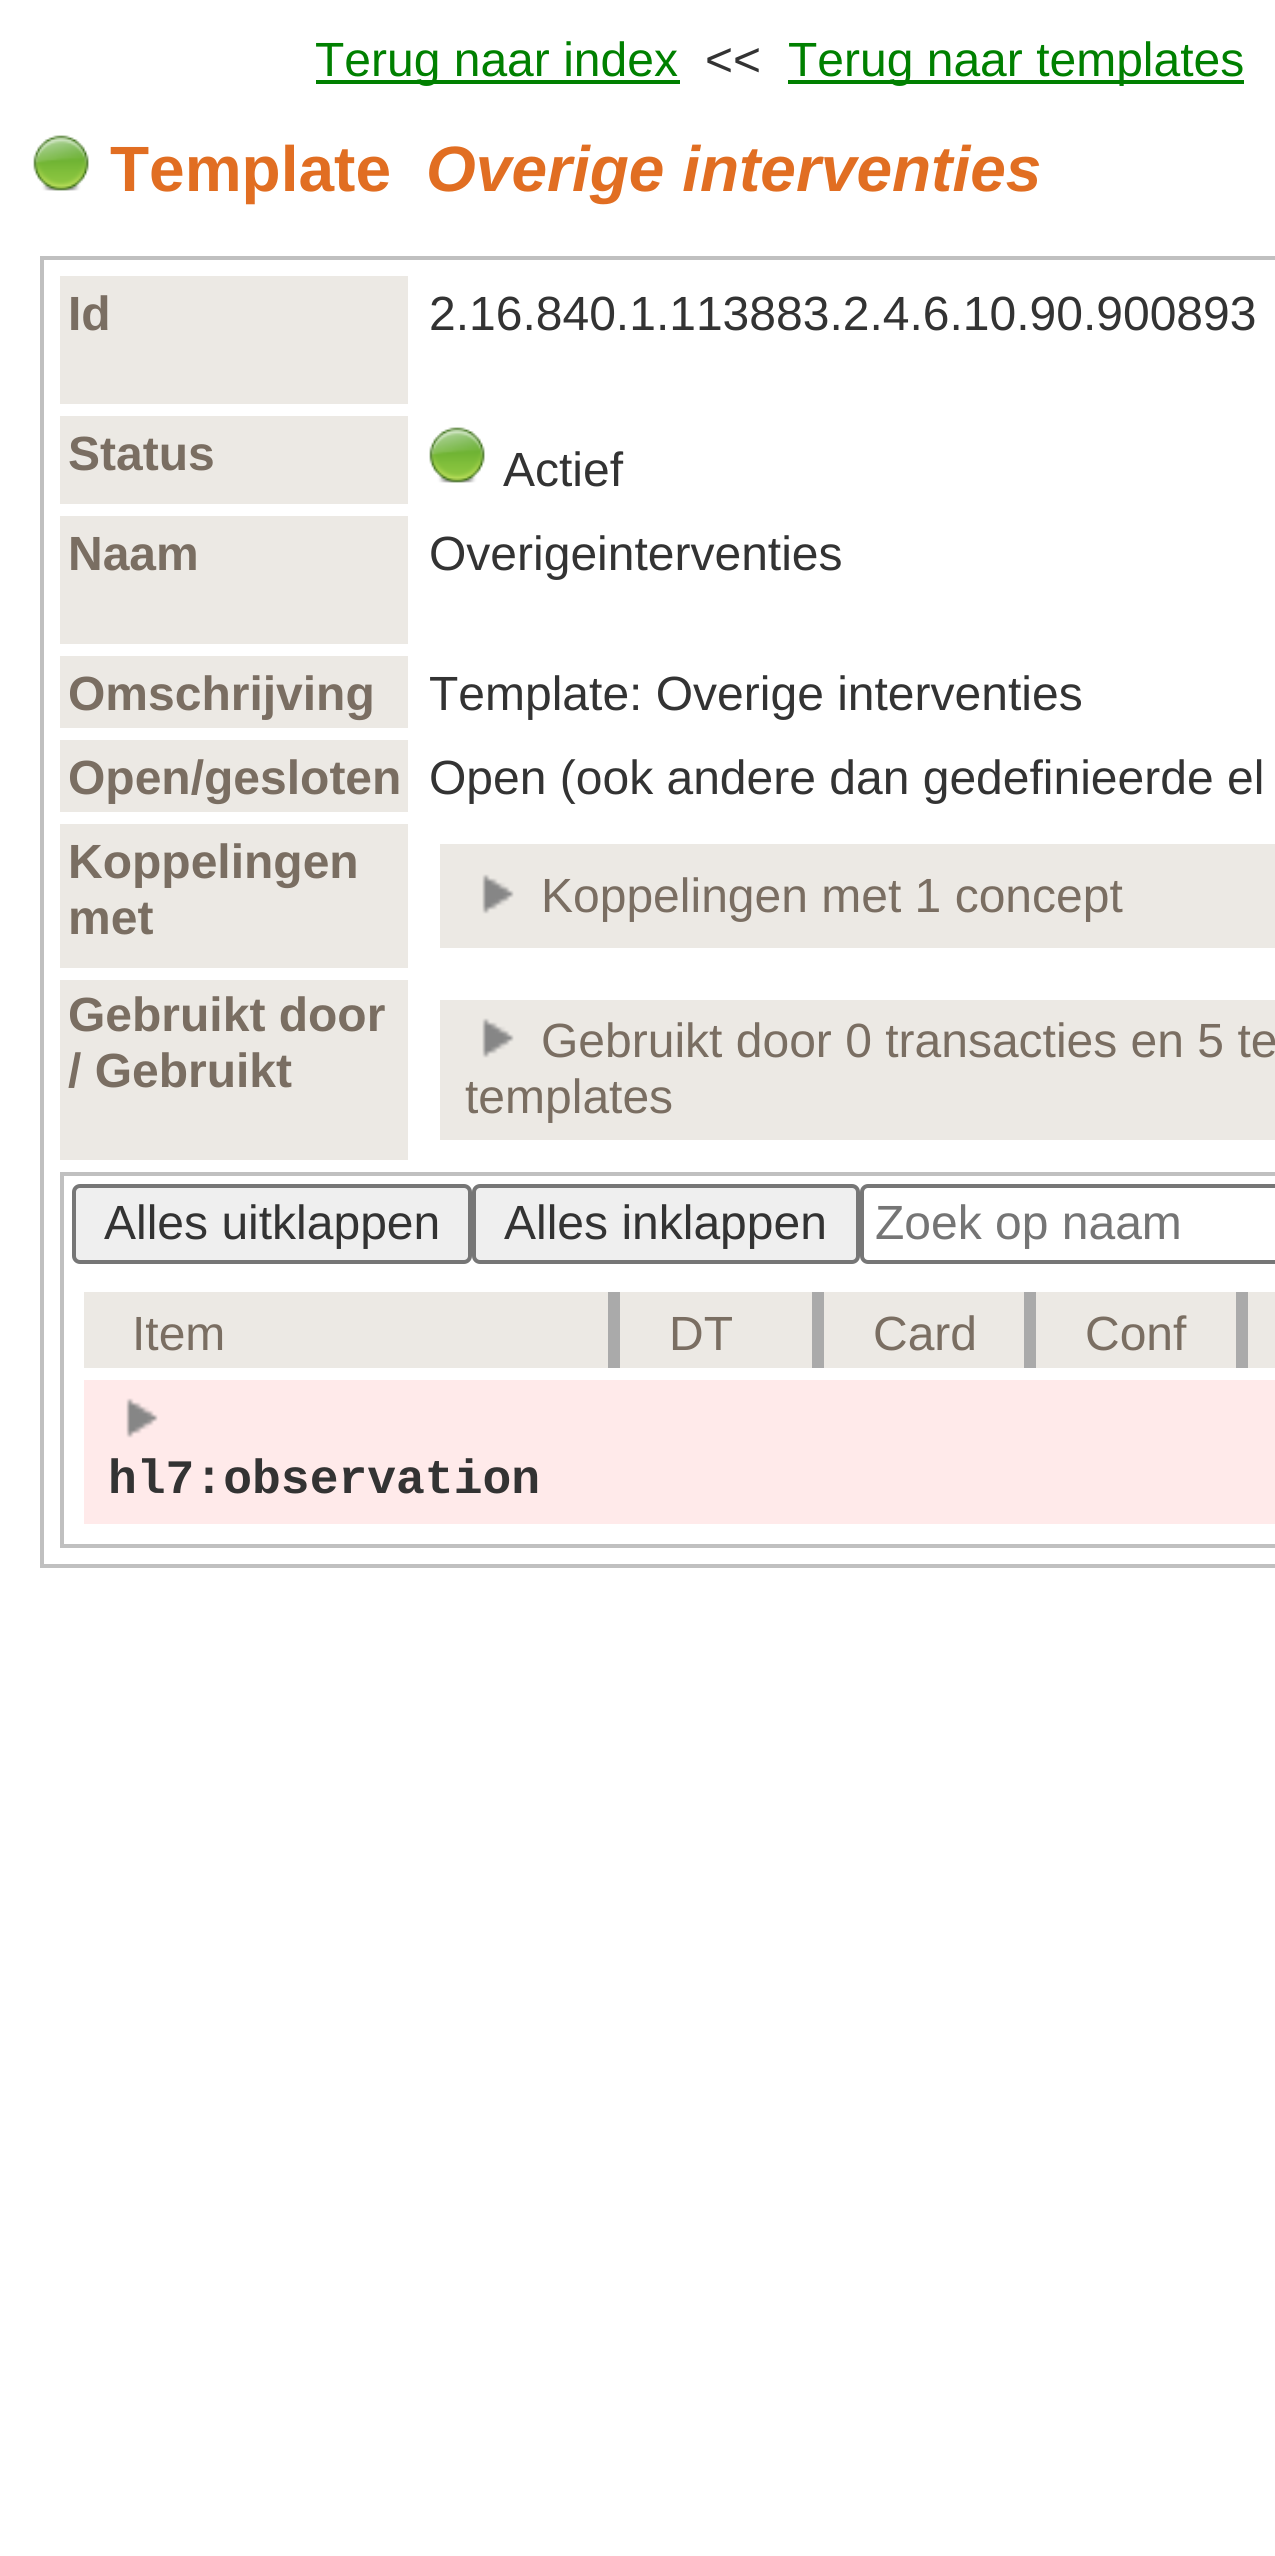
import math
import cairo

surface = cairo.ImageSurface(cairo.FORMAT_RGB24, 1275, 2556)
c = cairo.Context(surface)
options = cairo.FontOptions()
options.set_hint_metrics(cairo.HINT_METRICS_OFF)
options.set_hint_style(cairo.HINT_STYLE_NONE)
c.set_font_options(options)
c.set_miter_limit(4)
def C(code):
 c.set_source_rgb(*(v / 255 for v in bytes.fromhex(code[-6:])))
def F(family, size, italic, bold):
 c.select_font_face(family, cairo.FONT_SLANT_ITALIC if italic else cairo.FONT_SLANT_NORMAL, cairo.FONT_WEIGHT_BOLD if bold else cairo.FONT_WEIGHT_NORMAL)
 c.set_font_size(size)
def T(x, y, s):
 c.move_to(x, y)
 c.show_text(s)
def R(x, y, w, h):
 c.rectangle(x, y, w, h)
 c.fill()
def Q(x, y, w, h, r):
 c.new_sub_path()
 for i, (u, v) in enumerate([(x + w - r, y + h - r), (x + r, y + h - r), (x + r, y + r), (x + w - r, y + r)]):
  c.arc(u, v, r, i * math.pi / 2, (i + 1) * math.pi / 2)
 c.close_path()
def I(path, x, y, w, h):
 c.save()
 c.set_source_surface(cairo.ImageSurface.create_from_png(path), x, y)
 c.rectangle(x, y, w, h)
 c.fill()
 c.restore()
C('ffffff')
c.paint()
C('008000')
R(316,80,364,4)
F('Liberation Sans',48,0,0)
T(315,76,'Terug naar index')
C('333333')
T(705,76,'<<')
C('008000')
R(788,80,456,4)
T(788,76,'Terug naar templates')
I('1.png',33,135,56,56)
F('Liberation Sans',64,0,1)
C('e16e22')
T(110,191,'Template')
F('Liberation Sans',64,1,1)
T(426,191,'Overige interventies')
c.rectangle(42,258,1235,1308)
C('c0c0c0')
c.set_line_width(4)
c.stroke()
C('ece9e4')
R(60,276,348,128)
F('Liberation Sans',48,0,1)
C('7a6e62')
T(68,330,'Id')
F('Liberation Sans',48,0,0)
C('333333')
T(429,330,'2.16.840.1.113883.2.4.6.10.90.900893')
C('ece9e4')
R(60,416,348,88)
F('Liberation Sans',48,0,1)
C('7a6e62')
T(68,470,'Status')
I('2.png',429,427,56,56)
F('Liberation Sans',48,0,0)
C('333333')
T(503,486,'Actief')
C('ece9e4')
R(60,516,348,128)
F('Liberation Sans',48,0,1)
C('7a6e62')
T(68,570,'Naam')
F('Liberation Sans',48,0,0)
C('333333')
T(429,570,'Overigeinterventies')
C('ece9e4')
R(60,656,348,72)
F('Liberation Sans',48,0,1)
C('7a6e62')
T(68,710,'Omschrijving')
F('Liberation Sans',48,0,0)
C('333333')
T(429,710,'Template: Overige interventies')
C('ece9e4')
R(60,740,348,72)
F('Liberation Sans',48,0,1)
C('7a6e62')
T(68,794,'Open/gesloten')
F('Liberation Sans',48,0,0)
C('333333')
T(429,794,'Open (ook andere dan gedefinieerde el')
C('ece9e4')
R(60,824,348,144)
F('Liberation Sans',48,0,1)
C('7a6e62')
T(68,878,'Koppelingen')
T(68,934,'met')
C('ece9e4')
R(440,844,835,104)
I('3.png',482,874,32,40)
F('Liberation Sans',48,0,0)
C('7a6e62')
T(541,912,'Koppelingen met 1 concept')
C('ece9e4')
R(60,980,348,180)
F('Liberation Sans',48,0,1)
C('7a6e62')
T(68,1031,'Gebruikt door')
T(68,1087,'/ Gebruikt')
C('ece9e4')
R(440,1000,835,140)
I('3.png',482,1018,32,40)
F('Liberation Sans',48,0,0)
C('7a6e62')
T(541,1057,'Gebruikt door 0 transacties en 5 te')
T(465,1113,'templates')
c.rectangle(62,1174,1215,372)
C('c0c0c0')
c.stroke()
C('efefef')
Q(74,1186,396,76,6)
c.fill_preserve()
C('767676')
c.stroke()
C('333333')
T(104,1239,'Alles uitklappen')
C('efefef')
Q(474,1186,384,76,6)
c.fill_preserve()
C('767676')
c.stroke()
C('333333')
T(504,1239,'Alles inklappen')
Q(862,1186,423,76,6)
C('767676')
c.stroke()
C('757575')
T(875,1239,'Zoek op naam')
C('aaaaaa')
R(608,1292,640,76)
C('ece9e4')
R(84,1292,524,76)
C('7a6e62')
T(132,1350,'Item')
C('ece9e4')
R(620,1292,192,76)
C('7a6e62')
T(669,1350,'DT')
C('ece9e4')
R(824,1292,200,76)
C('7a6e62')
T(873,1350,'Card')
C('ece9e4')
R(1036,1292,200,76)
C('7a6e62')
T(1085,1350,'Conf')
C('ece9e4')
R(1248,1292,27,76)
C('ffeaea')
R(84,1380,1191,144)
I('4.png',126,1398,32,40)
F('Liberation Mono',48,0,1)
C('333333')
T(108,1493,'hl7:observation')
surface.write_to_png('o.png')
